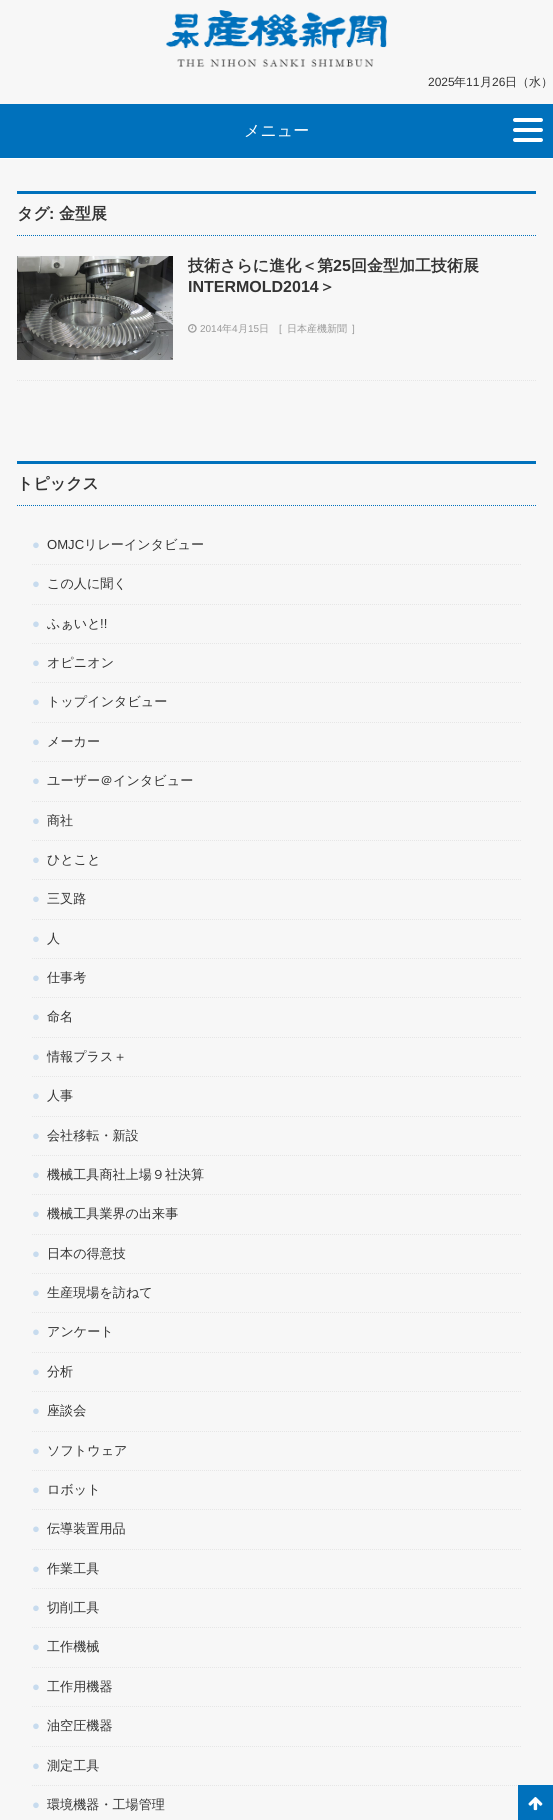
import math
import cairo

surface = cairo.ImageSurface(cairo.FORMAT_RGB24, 553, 1820)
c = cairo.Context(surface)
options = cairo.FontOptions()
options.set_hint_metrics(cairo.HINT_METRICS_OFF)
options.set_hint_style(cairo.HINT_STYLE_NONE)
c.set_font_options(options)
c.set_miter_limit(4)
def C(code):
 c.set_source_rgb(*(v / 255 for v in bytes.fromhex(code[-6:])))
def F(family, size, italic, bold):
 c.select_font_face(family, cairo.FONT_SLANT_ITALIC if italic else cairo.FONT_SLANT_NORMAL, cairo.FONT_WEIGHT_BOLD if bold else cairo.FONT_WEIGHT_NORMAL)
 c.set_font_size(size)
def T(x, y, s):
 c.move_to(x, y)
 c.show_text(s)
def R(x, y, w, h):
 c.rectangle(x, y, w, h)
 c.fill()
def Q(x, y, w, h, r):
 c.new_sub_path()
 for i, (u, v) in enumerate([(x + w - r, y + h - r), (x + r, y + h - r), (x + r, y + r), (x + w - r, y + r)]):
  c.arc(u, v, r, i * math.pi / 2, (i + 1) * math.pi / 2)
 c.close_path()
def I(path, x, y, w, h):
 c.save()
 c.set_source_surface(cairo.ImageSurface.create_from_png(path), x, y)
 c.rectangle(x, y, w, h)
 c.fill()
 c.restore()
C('f7f7f7')
c.paint()
I('1.png',166,10,221,57)
F('Liberation Sans',12,0,0)
C('333333')
T(428,86,'2025')
F('WenQuanYi Zen Hei Medium',12,0,0)
T(454,86,'年')
F('Liberation Sans',12,0,0)
T(466,86,'11')
F('WenQuanYi Zen Hei Medium',12,0,0)
T(480,86,'月')
F('Liberation Sans',12,0,0)
T(492,86,'26')
F('WenQuanYi Zen Hei Medium',12,0,0)
T(505,86,'日（水）')
C('0071bc')
R(0,104,553,54)
F('WenQuanYi Zen Hei Medium',16,0,0)
C('ffffff')
T(244,136,'メニュー')
Q(513,118,30,4,2)
c.fill()
Q(513,128,30,4,2)
c.fill()
Q(513,138,30,4,2)
c.fill()
R(0,158,553,1)
C('0071bc')
R(17,191,519,3)
c.new_path()
c.move_to(17,235.5)
c.line_to(536,235.5)
c.set_line_width(1)
c.set_dash([1,1])
c.stroke()
F('WenQuanYi Zen Hei',16,0,1)
C('333333')
T(17,219,'タグ')
F('Liberation Sans',16,0,1)
T(49,219,':')
F('WenQuanYi Zen Hei',16,0,1)
T(59,219,'金型展')
c.new_path()
c.move_to(17,380.5)
c.line_to(536,380.5)
C('e6e6e6')
c.stroke()
I('2.png',17,256,156,104)
C('333333')
T(188,271,'技術さらに進化＜第')
F('Liberation Sans',16,0,1)
T(333,271,'25')
F('WenQuanYi Zen Hei',16,0,1)
T(351,271,'回金型加工技術展')
F('Liberation Sans',16,0,1)
T(188,292,'INTERMOLD2014')
F('WenQuanYi Zen Hei',16,0,1)
T(319,292,'＞')
I('3.png',188,324,9,9)
F('Liberation Sans',10,0,0)
C('999999')
T(200,332,'2014')
F('WenQuanYi Zen Hei Medium',10,0,0)
T(222,332,'年')
F('Liberation Sans',10,0,0)
T(232,332,'4')
F('WenQuanYi Zen Hei Medium',10,0,0)
T(238,332,'月')
F('Liberation Sans',10,0,0)
T(248,332,'15')
F('WenQuanYi Zen Hei Medium',10,0,0)
T(259,332,'日')
F('Liberation Sans',10,0,0)
T(279,332,'[')
F('WenQuanYi Zen Hei Medium',10,0,0)
T(287,332,'日本産機新聞')
F('Liberation Sans',10,0,0)
T(352,332,']')
C('0071bc')
R(17,461,519,3)
c.new_path()
c.move_to(17,505.5)
c.line_to(536,505.5)
c.stroke()
F('WenQuanYi Zen Hei',16,0,1)
C('333333')
T(17,489,'トピックス')
c.new_path()
c.move_to(32,564.5)
c.line_to(521,564.5)
C('e6e6e6')
c.stroke()
F('Liberation Sans',13.1,0,0)
C('c7dbee')
T(32,549,'●')
C('333333')
T(47,549,'OMJC')
F('WenQuanYi Zen Hei Medium',13.1,0,0)
T(84,549,'リレーインタビュー')
c.new_path()
c.move_to(32,604.5)
c.line_to(521,604.5)
C('e6e6e6')
c.stroke()
F('Liberation Sans',13.1,0,0)
C('c7dbee')
T(32,588,'●')
F('WenQuanYi Zen Hei Medium',13.1,0,0)
C('333333')
T(47,588,'この人に聞く')
c.new_path()
c.move_to(32,643.5)
c.line_to(521,643.5)
C('e6e6e6')
c.stroke()
F('Liberation Sans',13.1,0,0)
C('c7dbee')
T(32,628,'●')
F('WenQuanYi Zen Hei Medium',13.1,0,0)
C('333333')
T(47,628,'ふぁいと')
F('Liberation Sans',13.1,0,0)
T(100,628,'!!')
c.new_path()
c.move_to(32,682.5)
c.line_to(521,682.5)
C('e6e6e6')
c.stroke()
C('c7dbee')
T(32,667,'●')
F('WenQuanYi Zen Hei Medium',13.1,0,0)
C('333333')
T(47,667,'オピニオン')
c.new_path()
c.move_to(32,722.5)
c.line_to(521,722.5)
C('e6e6e6')
c.stroke()
F('Liberation Sans',13.1,0,0)
C('c7dbee')
T(32,706,'●')
F('WenQuanYi Zen Hei Medium',13.1,0,0)
C('333333')
T(47,706,'トップインタビュー')
c.new_path()
c.move_to(32,761.5)
c.line_to(521,761.5)
C('e6e6e6')
c.stroke()
F('Liberation Sans',13.1,0,0)
C('c7dbee')
T(32,746,'●')
F('WenQuanYi Zen Hei Medium',13.1,0,0)
C('333333')
T(47,746,'メーカー')
c.new_path()
c.move_to(32,801.5)
c.line_to(521,801.5)
C('e6e6e6')
c.stroke()
F('Liberation Sans',13.1,0,0)
C('c7dbee')
T(32,785,'●')
F('WenQuanYi Zen Hei Medium',13.1,0,0)
C('333333')
T(47,785,'ユーザー＠インタビュー')
c.new_path()
c.move_to(32,840.5)
c.line_to(521,840.5)
C('e6e6e6')
c.stroke()
F('Liberation Sans',13.1,0,0)
C('c7dbee')
T(32,825,'●')
F('WenQuanYi Zen Hei Medium',13.1,0,0)
C('333333')
T(47,825,'商社')
c.new_path()
c.move_to(32,879.5)
c.line_to(521,879.5)
C('e6e6e6')
c.stroke()
F('Liberation Sans',13.1,0,0)
C('c7dbee')
T(32,864,'●')
F('WenQuanYi Zen Hei Medium',13.1,0,0)
C('333333')
T(47,864,'ひとこと')
c.new_path()
c.move_to(32,919.5)
c.line_to(521,919.5)
C('e6e6e6')
c.stroke()
F('Liberation Sans',13.1,0,0)
C('c7dbee')
T(32,903,'●')
F('WenQuanYi Zen Hei Medium',13.1,0,0)
C('333333')
T(47,903,'三叉路')
c.new_path()
c.move_to(32,958.5)
c.line_to(521,958.5)
C('e6e6e6')
c.stroke()
F('Liberation Sans',13.1,0,0)
C('c7dbee')
T(32,943,'●')
F('WenQuanYi Zen Hei Medium',13.1,0,0)
C('333333')
T(47,943,'人')
c.new_path()
c.move_to(32,997.5)
c.line_to(521,997.5)
C('e6e6e6')
c.stroke()
F('Liberation Sans',13.1,0,0)
C('c7dbee')
T(32,982,'●')
F('WenQuanYi Zen Hei Medium',13.1,0,0)
C('333333')
T(47,982,'仕事考')
c.new_path()
c.move_to(32,1037.5)
c.line_to(521,1037.5)
C('e6e6e6')
c.stroke()
F('Liberation Sans',13.1,0,0)
C('c7dbee')
T(32,1021,'●')
F('WenQuanYi Zen Hei Medium',13.1,0,0)
C('333333')
T(47,1021,'命名')
c.new_path()
c.move_to(32,1076.5)
c.line_to(521,1076.5)
C('e6e6e6')
c.stroke()
F('Liberation Sans',13.1,0,0)
C('c7dbee')
T(32,1061,'●')
F('WenQuanYi Zen Hei Medium',13.1,0,0)
C('333333')
T(47,1061,'情報プラス＋')
c.new_path()
c.move_to(32,1116.5)
c.line_to(521,1116.5)
C('e6e6e6')
c.stroke()
F('Liberation Sans',13.1,0,0)
C('c7dbee')
T(32,1100,'●')
F('WenQuanYi Zen Hei Medium',13.1,0,0)
C('333333')
T(47,1100,'人事')
c.new_path()
c.move_to(32,1155.5)
c.line_to(521,1155.5)
C('e6e6e6')
c.stroke()
F('Liberation Sans',13.1,0,0)
C('c7dbee')
T(32,1140,'●')
F('WenQuanYi Zen Hei Medium',13.1,0,0)
C('333333')
T(47,1140,'会社移転・新設')
c.new_path()
c.move_to(32,1194.5)
c.line_to(521,1194.5)
C('e6e6e6')
c.stroke()
F('Liberation Sans',13.1,0,0)
C('c7dbee')
T(32,1179,'●')
F('WenQuanYi Zen Hei Medium',13.1,0,0)
C('333333')
T(47,1179,'機械工具商社上場９社決算')
c.new_path()
c.move_to(32,1234.5)
c.line_to(521,1234.5)
C('e6e6e6')
c.stroke()
F('Liberation Sans',13.1,0,0)
C('c7dbee')
T(32,1218,'●')
F('WenQuanYi Zen Hei Medium',13.1,0,0)
C('333333')
T(47,1218,'機械工具業界の出来事')
c.new_path()
c.move_to(32,1273.5)
c.line_to(521,1273.5)
C('e6e6e6')
c.stroke()
F('Liberation Sans',13.1,0,0)
C('c7dbee')
T(32,1258,'●')
F('WenQuanYi Zen Hei Medium',13.1,0,0)
C('333333')
T(47,1258,'日本の得意技')
c.new_path()
c.move_to(32,1312.5)
c.line_to(521,1312.5)
C('e6e6e6')
c.stroke()
F('Liberation Sans',13.1,0,0)
C('c7dbee')
T(32,1297,'●')
F('WenQuanYi Zen Hei Medium',13.1,0,0)
C('333333')
T(47,1297,'生産現場を訪ねて')
c.new_path()
c.move_to(32,1352.5)
c.line_to(521,1352.5)
C('e6e6e6')
c.stroke()
F('Liberation Sans',13.1,0,0)
C('c7dbee')
T(32,1336,'●')
F('WenQuanYi Zen Hei Medium',13.1,0,0)
C('333333')
T(47,1336,'アンケート')
c.new_path()
c.move_to(32,1391.5)
c.line_to(521,1391.5)
C('e6e6e6')
c.stroke()
F('Liberation Sans',13.1,0,0)
C('c7dbee')
T(32,1376,'●')
F('WenQuanYi Zen Hei Medium',13.1,0,0)
C('333333')
T(47,1376,'分析')
c.new_path()
c.move_to(32,1431.5)
c.line_to(521,1431.5)
C('e6e6e6')
c.stroke()
F('Liberation Sans',13.1,0,0)
C('c7dbee')
T(32,1415,'●')
F('WenQuanYi Zen Hei Medium',13.1,0,0)
C('333333')
T(47,1415,'座談会')
c.new_path()
c.move_to(32,1470.5)
c.line_to(521,1470.5)
C('e6e6e6')
c.stroke()
F('Liberation Sans',13.1,0,0)
C('c7dbee')
T(32,1455,'●')
F('WenQuanYi Zen Hei Medium',13.1,0,0)
C('333333')
T(47,1455,'ソフトウェア')
c.new_path()
c.move_to(32,1509.5)
c.line_to(521,1509.5)
C('e6e6e6')
c.stroke()
F('Liberation Sans',13.1,0,0)
C('c7dbee')
T(32,1494,'●')
F('WenQuanYi Zen Hei Medium',13.1,0,0)
C('333333')
T(47,1494,'ロボット')
c.new_path()
c.move_to(32,1549.5)
c.line_to(521,1549.5)
C('e6e6e6')
c.stroke()
F('Liberation Sans',13.1,0,0)
C('c7dbee')
T(32,1533,'●')
F('WenQuanYi Zen Hei Medium',13.1,0,0)
C('333333')
T(47,1533,'伝導装置用品')
c.new_path()
c.move_to(32,1588.5)
c.line_to(521,1588.5)
C('e6e6e6')
c.stroke()
F('Liberation Sans',13.1,0,0)
C('c7dbee')
T(32,1573,'●')
F('WenQuanYi Zen Hei Medium',13.1,0,0)
C('333333')
T(47,1573,'作業工具')
c.new_path()
c.move_to(32,1627.5)
c.line_to(521,1627.5)
C('e6e6e6')
c.stroke()
F('Liberation Sans',13.1,0,0)
C('c7dbee')
T(32,1612,'●')
F('WenQuanYi Zen Hei Medium',13.1,0,0)
C('333333')
T(47,1612,'切削工具')
c.new_path()
c.move_to(32,1667.5)
c.line_to(521,1667.5)
C('e6e6e6')
c.stroke()
F('Liberation Sans',13.1,0,0)
C('c7dbee')
T(32,1651,'●')
F('WenQuanYi Zen Hei Medium',13.1,0,0)
C('333333')
T(47,1651,'工作機械')
c.new_path()
c.move_to(32,1706.5)
c.line_to(521,1706.5)
C('e6e6e6')
c.stroke()
F('Liberation Sans',13.1,0,0)
C('c7dbee')
T(32,1691,'●')
F('WenQuanYi Zen Hei Medium',13.1,0,0)
C('333333')
T(47,1691,'工作用機器')
c.new_path()
c.move_to(32,1746.5)
c.line_to(521,1746.5)
C('e6e6e6')
c.stroke()
F('Liberation Sans',13.1,0,0)
C('c7dbee')
T(32,1730,'●')
F('WenQuanYi Zen Hei Medium',13.1,0,0)
C('333333')
T(47,1730,'油空圧機器')
c.new_path()
c.move_to(32,1785.5)
c.line_to(521,1785.5)
C('e6e6e6')
c.stroke()
F('Liberation Sans',13.1,0,0)
C('c7dbee')
T(32,1770,'●')
F('WenQuanYi Zen Hei Medium',13.1,0,0)
C('333333')
T(47,1770,'測定工具')
F('Liberation Sans',13.1,0,0)
C('c7dbee')
T(32,1809,'●')
F('WenQuanYi Zen Hei Medium',13.1,0,0)
C('333333')
T(47,1809,'環境機器・工場管理')
C('0071bc')
R(518,1785,35,35)
I('4.png',528,1797,15,14)
surface.write_to_png('o.png')
